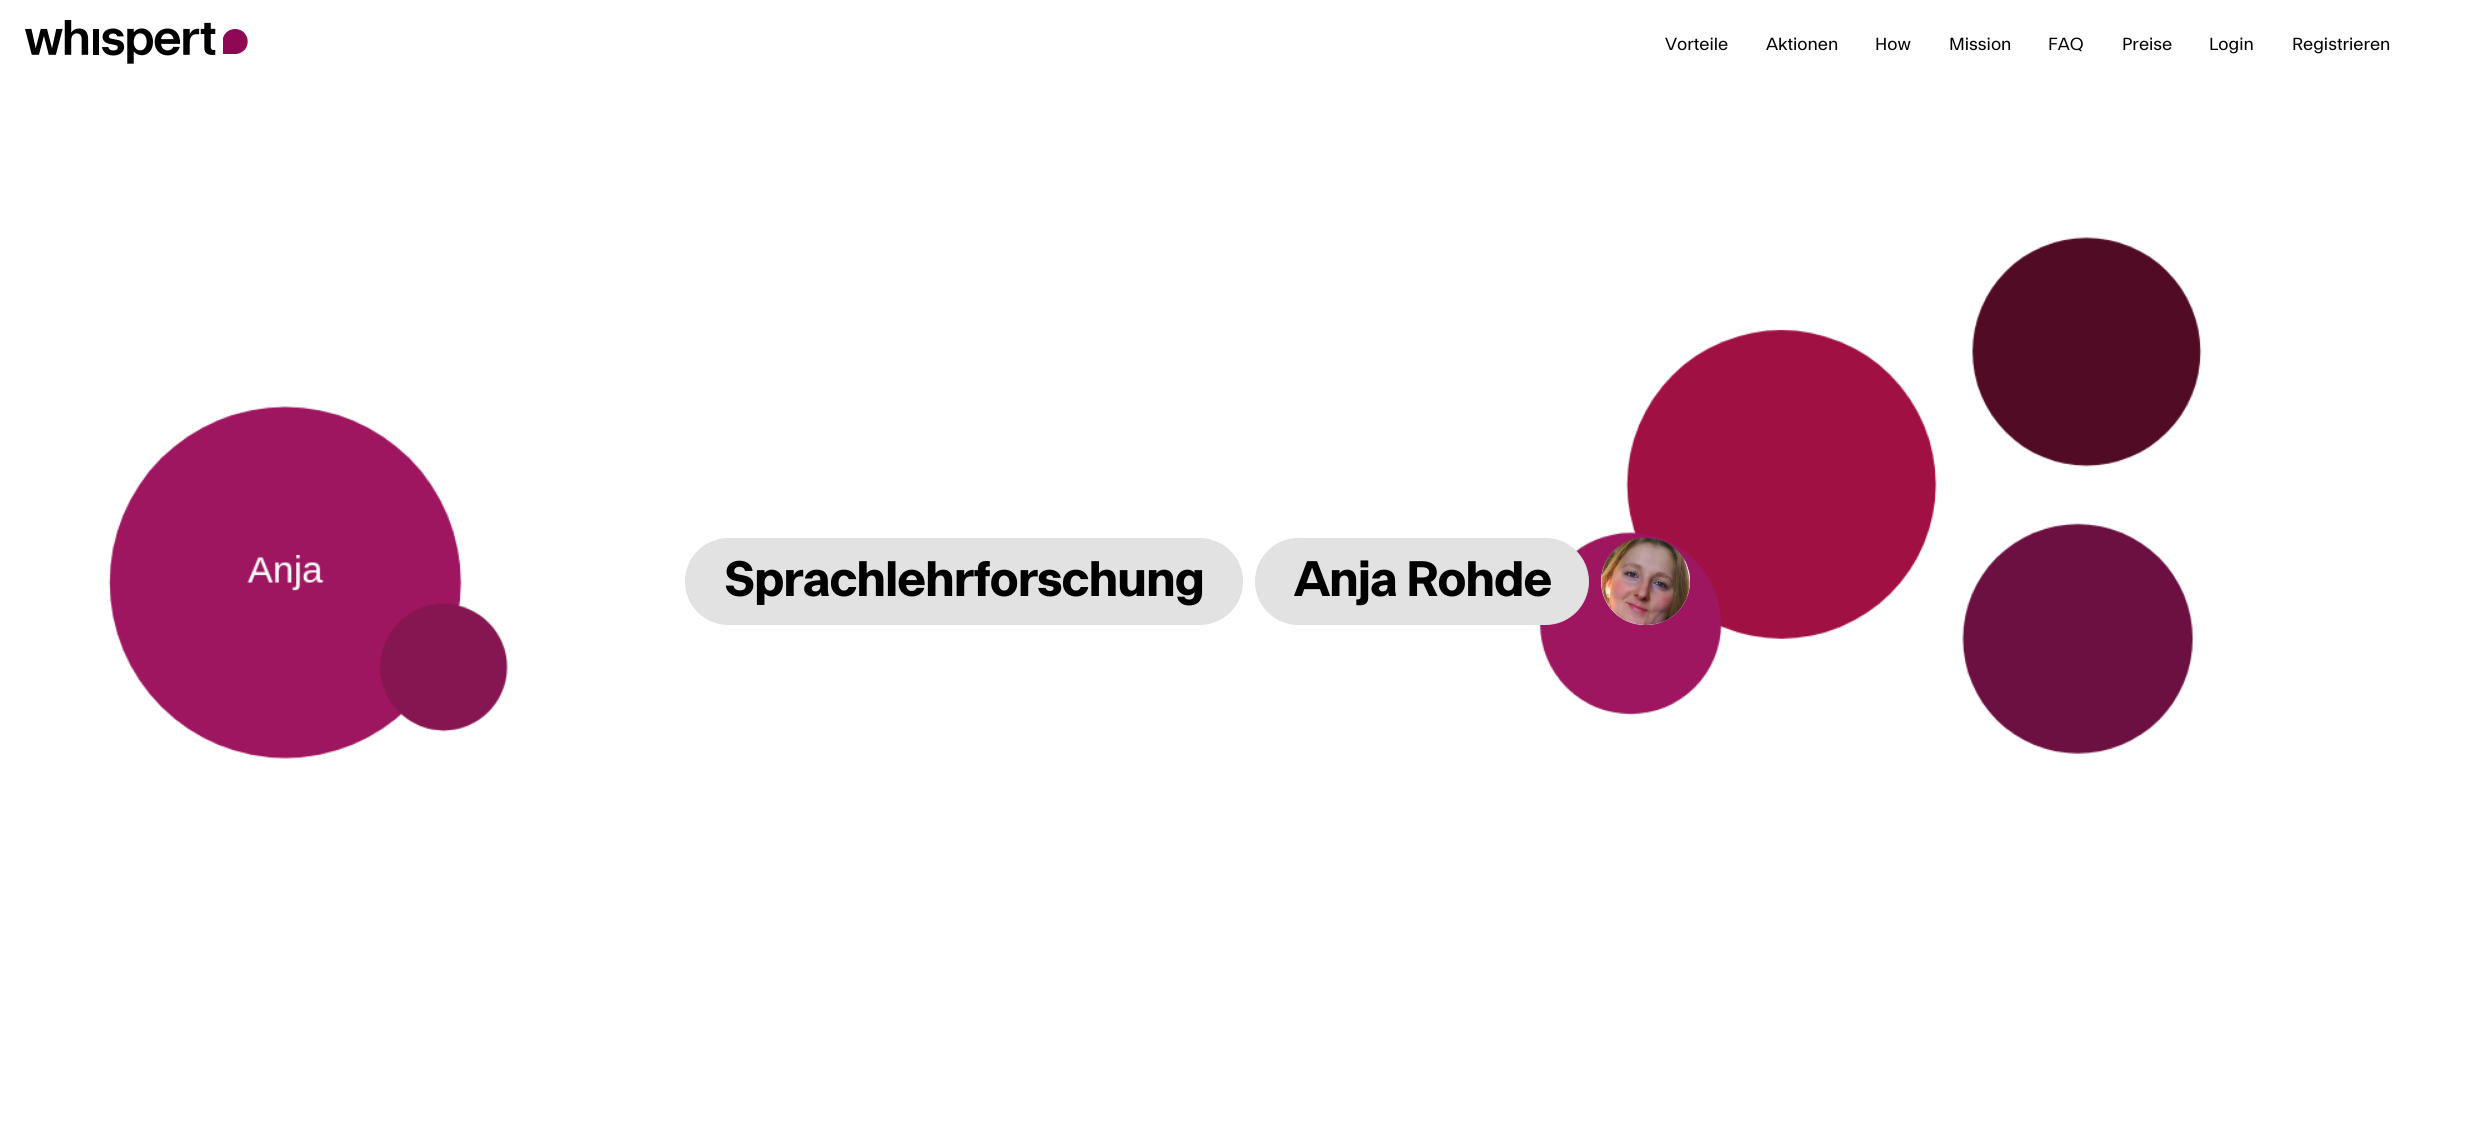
import math
import cairo

surface = cairo.ImageSurface(cairo.FORMAT_RGB24, 2489, 1122)
c = cairo.Context(surface)
options = cairo.FontOptions()
options.set_hint_metrics(cairo.HINT_METRICS_OFF)
options.set_hint_style(cairo.HINT_STYLE_NONE)
c.set_font_options(options)
c.set_miter_limit(4)
def C(code):
 c.set_source_rgb(*(v / 255 for v in bytes.fromhex(code[-6:])))
def F(family, size, italic, bold):
 c.select_font_face(family, cairo.FONT_SLANT_ITALIC if italic else cairo.FONT_SLANT_NORMAL, cairo.FONT_WEIGHT_BOLD if bold else cairo.FONT_WEIGHT_NORMAL)
 c.set_font_size(size)
def T(x, y, s):
 c.move_to(x, y)
 c.show_text(s)
def L(x, y, s, letter, word):
 c.move_to(x, y)
 for ch in s:
  c.show_text(ch)
  c.rel_move_to(letter + word * (ch == ' '), 0)
def Q(x, y, w, h, r):
 c.new_sub_path()
 for i, (u, v) in enumerate([(x + w - r, y + h - r), (x + r, y + h - r), (x + r, y + r), (x + w - r, y + r)]):
  c.arc(u, v, r, i * math.pi / 2, (i + 1) * math.pi / 2)
 c.close_path()
def I(path, x, y, w, h):
 c.save()
 c.set_source_surface(cairo.ImageSurface.create_from_png(path), x, y)
 c.rectangle(x, y, w, h)
 c.fill()
 c.restore()
C('ffffff')
c.paint()
I('1.png',25,20,191,44)
c.save()
c.rectangle(223,29,25,25)
c.clip()
C('8f0854')
c.new_path()
c.move_to(235,29)
c.curve_to(249,29,252.5,48,240,53)
c.curve_to(236,55,227.5,54,222.5,54)
c.line_to(222.5,41.5)
c.curve_to(222.5,34.5,228,29,235,29)
c.close_path()
c.fill()
c.restore()
F('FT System',17.5,0,0)
C('000000')
T(1665,50,'Vorteile')
T(1766,50,'Aktionen')
T(1875,50,'How')
T(1949,50,'Mission')
T(2048,50,'FAQ')
T(2122,50,'Preise')
T(2209,50,'Login')
T(2292,50,'Registrieren')
I('2.png',108,237,2094,522)
C('e2e2e2')
Q(685.5,538.5,557,86,43)
c.fill_preserve()
C('dfe0e2')
c.set_line_width(1)
c.stroke()
F('FT System',49.75,0,1)
C('000000')
L(724,596,'Sprachlehrforschung',-1.5,0)
C('e2e2e2')
Q(1255.5,538.5,333,86,43)
c.fill_preserve()
C('dfe0e2')
c.stroke()
C('000000')
L(1294,596,'Anja Rohde',-1.5,0)
C('ededed')
Q(1601,538,89,87,43.5)
c.fill()
I('3.png',1601,537,89,88)
surface.write_to_png('o.png')
